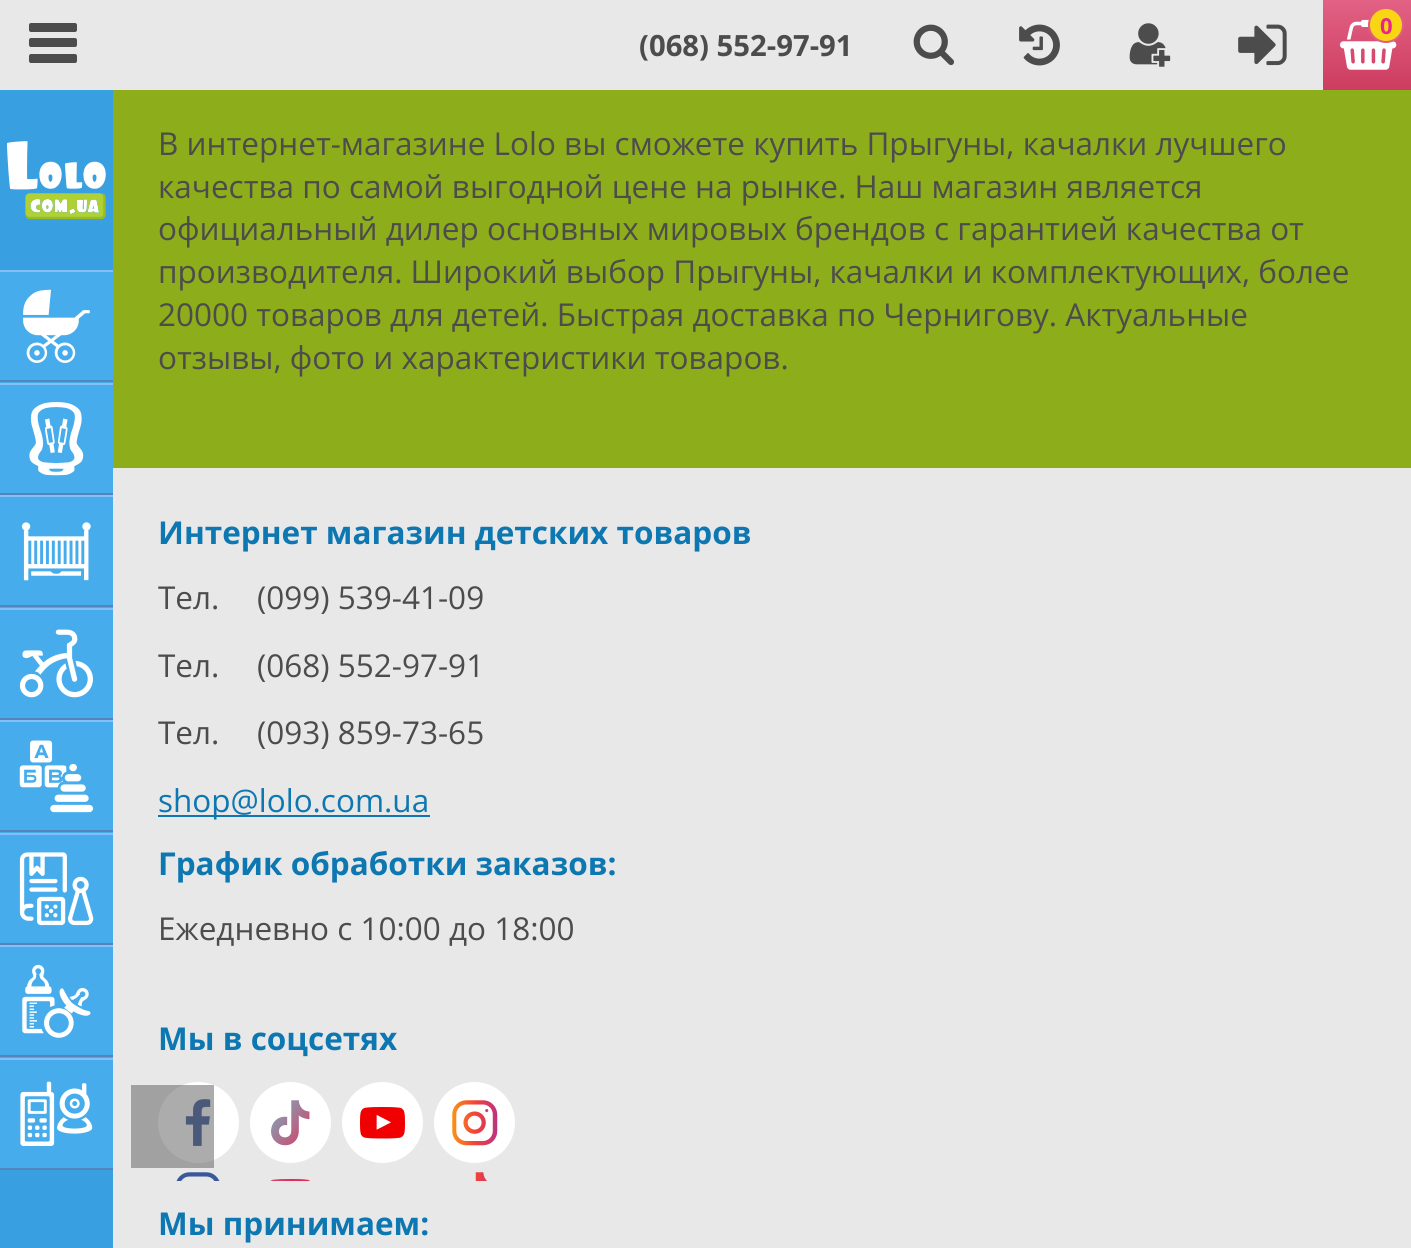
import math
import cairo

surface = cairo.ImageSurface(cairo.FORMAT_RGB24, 1411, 1248)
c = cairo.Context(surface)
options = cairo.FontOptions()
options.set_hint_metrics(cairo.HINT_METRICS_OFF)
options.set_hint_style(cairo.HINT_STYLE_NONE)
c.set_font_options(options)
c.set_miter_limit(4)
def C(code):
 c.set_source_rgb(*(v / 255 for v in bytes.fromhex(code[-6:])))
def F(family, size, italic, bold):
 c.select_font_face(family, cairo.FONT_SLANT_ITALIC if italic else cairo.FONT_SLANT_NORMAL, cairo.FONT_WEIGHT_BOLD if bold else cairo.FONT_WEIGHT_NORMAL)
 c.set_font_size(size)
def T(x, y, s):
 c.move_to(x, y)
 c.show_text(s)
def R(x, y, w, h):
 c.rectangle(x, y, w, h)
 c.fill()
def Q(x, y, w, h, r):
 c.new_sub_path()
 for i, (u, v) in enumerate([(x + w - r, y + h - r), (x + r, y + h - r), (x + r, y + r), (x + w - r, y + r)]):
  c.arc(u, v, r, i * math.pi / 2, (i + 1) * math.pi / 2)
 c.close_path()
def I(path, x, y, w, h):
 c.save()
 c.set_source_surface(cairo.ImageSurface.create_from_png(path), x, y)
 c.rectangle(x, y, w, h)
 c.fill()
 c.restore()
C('8ead1a')
c.paint()
C('38a0e0')
R(0,90,113,1158)
I('1.png',7,141,99,79)
C('46aceb')
R(0,272,113,111)
C('85bff8')
R(0,270,113,2)
I('2.png',23,289,67,74)
C('5385bc')
R(0,380,113,2)
C('46aceb')
R(0,385,113,108)
C('85bff8')
R(0,383,113,2)
I('3.png',29,402,55,74)
C('5385bc')
R(0,493,113,2)
C('46aceb')
R(0,497,113,111)
C('85bff8')
R(0,495,113,2)
I('4.png',22,522,69,59)
C('5385bc')
R(0,605,113,2)
C('46aceb')
R(0,610,113,108)
C('85bff8')
R(0,608,113,2)
I('5.png',19,629,74,69)
C('5385bc')
R(0,718,113,2)
C('46aceb')
R(0,722,113,111)
C('85bff8')
R(0,720,113,2)
I('6.png',19,740,75,73)
C('5385bc')
R(0,830,113,2)
C('46aceb')
R(0,835,113,108)
C('85bff8')
R(0,833,113,2)
I('7.png',19,852,75,74)
C('5385bc')
R(0,943,113,2)
C('46aceb')
R(0,947,113,111)
C('85bff8')
R(0,945,113,2)
I('8.png',22,964,69,74)
C('5385bc')
R(0,1055,113,2)
C('46aceb')
R(0,1060,113,108)
C('85bff8')
R(0,1058,113,2)
I('9.png',20,1081,73,65)
C('5385bc')
R(0,1168,113,2)
C('e9e8e8')
R(0,0,1323,90)
C('4c4c4c')
Q(29,38,48,9,2)
c.fill()
Q(29,23,48,9,2)
c.fill()
Q(29,54,48,9,2)
c.fill()
F('Open Sans',29.25,0,1)
T(639,56,'(068) 552-97-91')
I('10.png',913,24,41,42)
I('11.png',1019,24,41,42)
I('12.png',1129,23,42,44)
I('13.png',1238,24,49,42)
gradient = cairo.LinearGradient(1368,90,1368,0)
gradient.add_color_stop_rgba(0,0.804,0.239,0.376,1)
gradient.add_color_stop_rgba(1,0.886,0.38,0.518,1)
c.set_source(gradient)
R(1323,0,88,90)
I('14.png',1339,19,58,51)
C('f9d614')
c.arc(1386,25,17,0,2 * math.pi)
c.fill_preserve()
C('e15e81')
c.stroke()
F('Open Sans',22,0,1)
C('e9248e')
T(1380,34,'0')
F('Open Sans',31.5,0,0)
C('4c4c4c')
T(158,155,'В интернет-магазине Lolo вы сможете купить Прыгуны, качалки лучшего')
T(158,198,'качества по самой выгодной цене на рынке. Наш магазин является')
T(158,240,'официальный дилер основных мировых брендов с гарантией качества от')
T(158,283,'производителя. Широкий выбор Прыгуны, качалки и комплектующих, более')
T(158,326,'20000 товаров для детей. Быстрая доставка по Чернигову. Актуальные')
T(158,369,'отзывы, фото и характеристики товаров.')
C('e9e8e8')
R(113,468,1298,780)
F('Open Sans',31.5,0,1)
C('0d77b2')
T(158,544,'Интернет магазин детских товаров')
F('Open Sans',31.5,0,0)
C('4c4c4c')
T(158,609,'Тел.')
T(257,609,'(099) 539-41-09')
T(158,677,'Тел.')
T(257,677,'(068) 552-97-91')
T(158,744,'Тел.')
T(257,744,'(093) 859-73-65')
C('0d77b2')
R(158,815,272,2)
T(158,812,'shop@lolo.com.ua')
F('Open Sans',31.5,0,1)
T(158,875,'График обработки заказов:')
F('Open Sans',31.5,0,0)
C('4c4c4c')
T(158,940,'Ежедневно с 10:00 до 18:00')
F('Open Sans',31.5,0,1)
C('0d77b2')
T(158,1050,'Мы в соцсетях')
C('ffffff')
c.new_path()
c.arc(198.5,1122.5,40.5,0,2 * math.pi)
c.fill()
I('15.png',176,1099,44,82)
c.arc(290.5,1122.5,40.5,0,2 * math.pi)
c.fill()
I('16.png',270,1100,40,81)
c.arc(382.5,1122.5,40.5,0,2 * math.pi)
c.fill()
I('17.png',360,1107,45,32)
c.arc(474.5,1122.5,40.5,0,2 * math.pi)
c.fill()
I('18.png',452,1100,46,81)
C('0d77b2')
T(158,1235,'Мы принимаем:')
c.set_source_rgba(0.357,0.357,0.357,0.5)
R(131,1085,83,83)
surface.write_to_png('o.png')
